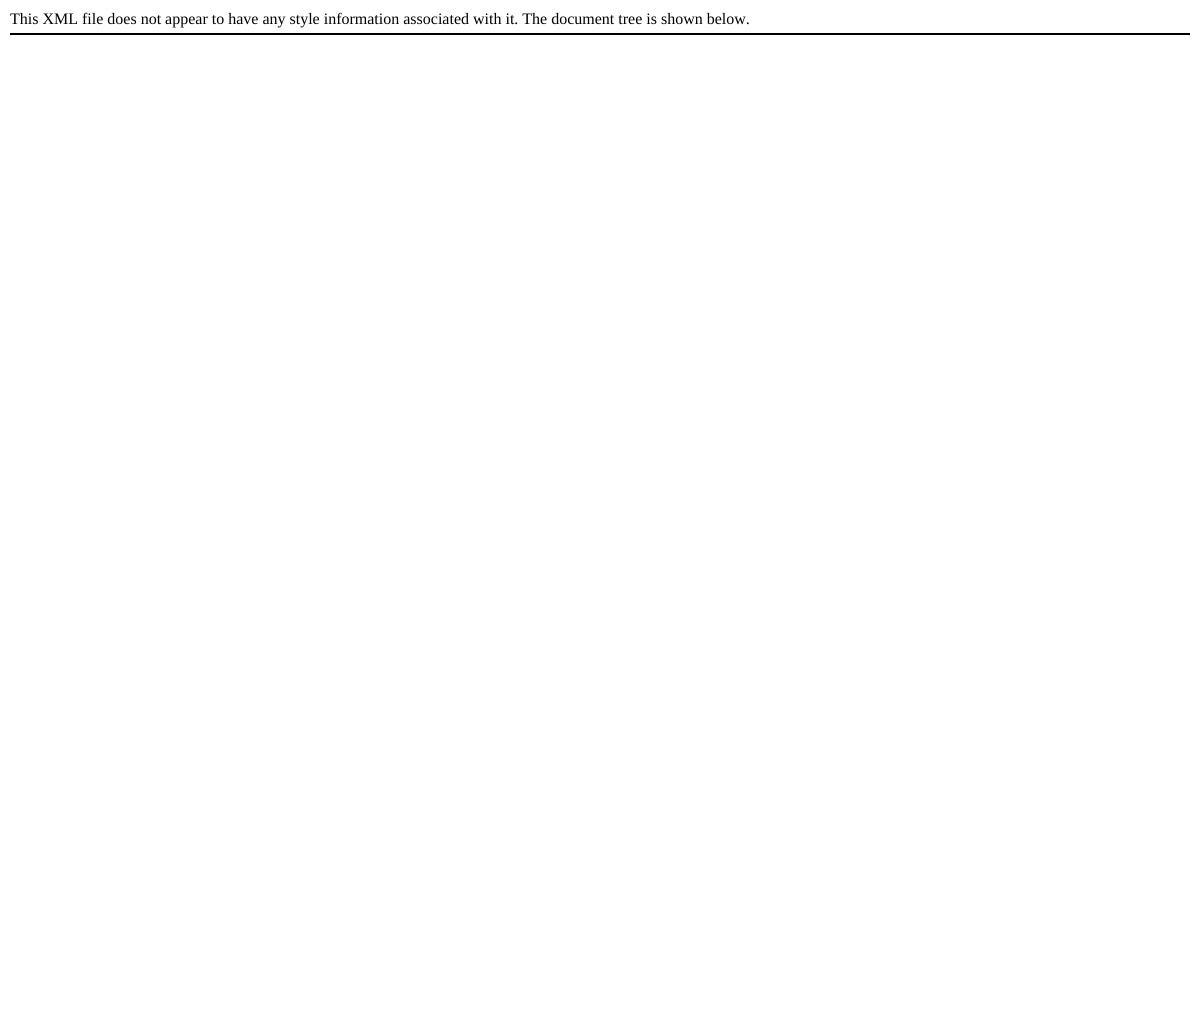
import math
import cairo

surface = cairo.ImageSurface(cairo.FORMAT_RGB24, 1200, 1009)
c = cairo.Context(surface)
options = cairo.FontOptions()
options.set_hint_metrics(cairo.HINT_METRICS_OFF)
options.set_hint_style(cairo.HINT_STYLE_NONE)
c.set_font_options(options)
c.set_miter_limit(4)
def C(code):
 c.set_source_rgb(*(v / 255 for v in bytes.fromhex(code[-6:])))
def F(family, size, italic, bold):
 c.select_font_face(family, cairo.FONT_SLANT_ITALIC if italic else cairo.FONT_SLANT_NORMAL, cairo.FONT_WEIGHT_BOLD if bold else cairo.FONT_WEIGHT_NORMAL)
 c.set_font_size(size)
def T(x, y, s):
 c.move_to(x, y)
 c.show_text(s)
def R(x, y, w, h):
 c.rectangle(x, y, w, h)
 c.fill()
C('ffffff')
c.paint()
C('000000')
R(10,33,1180,2)
F('Liberation Serif',16,0,0)
T(10,24,'This XML file does not appear to have any style information associated with it. The document tree is shown below.')
surface.write_to_png('o.png')
